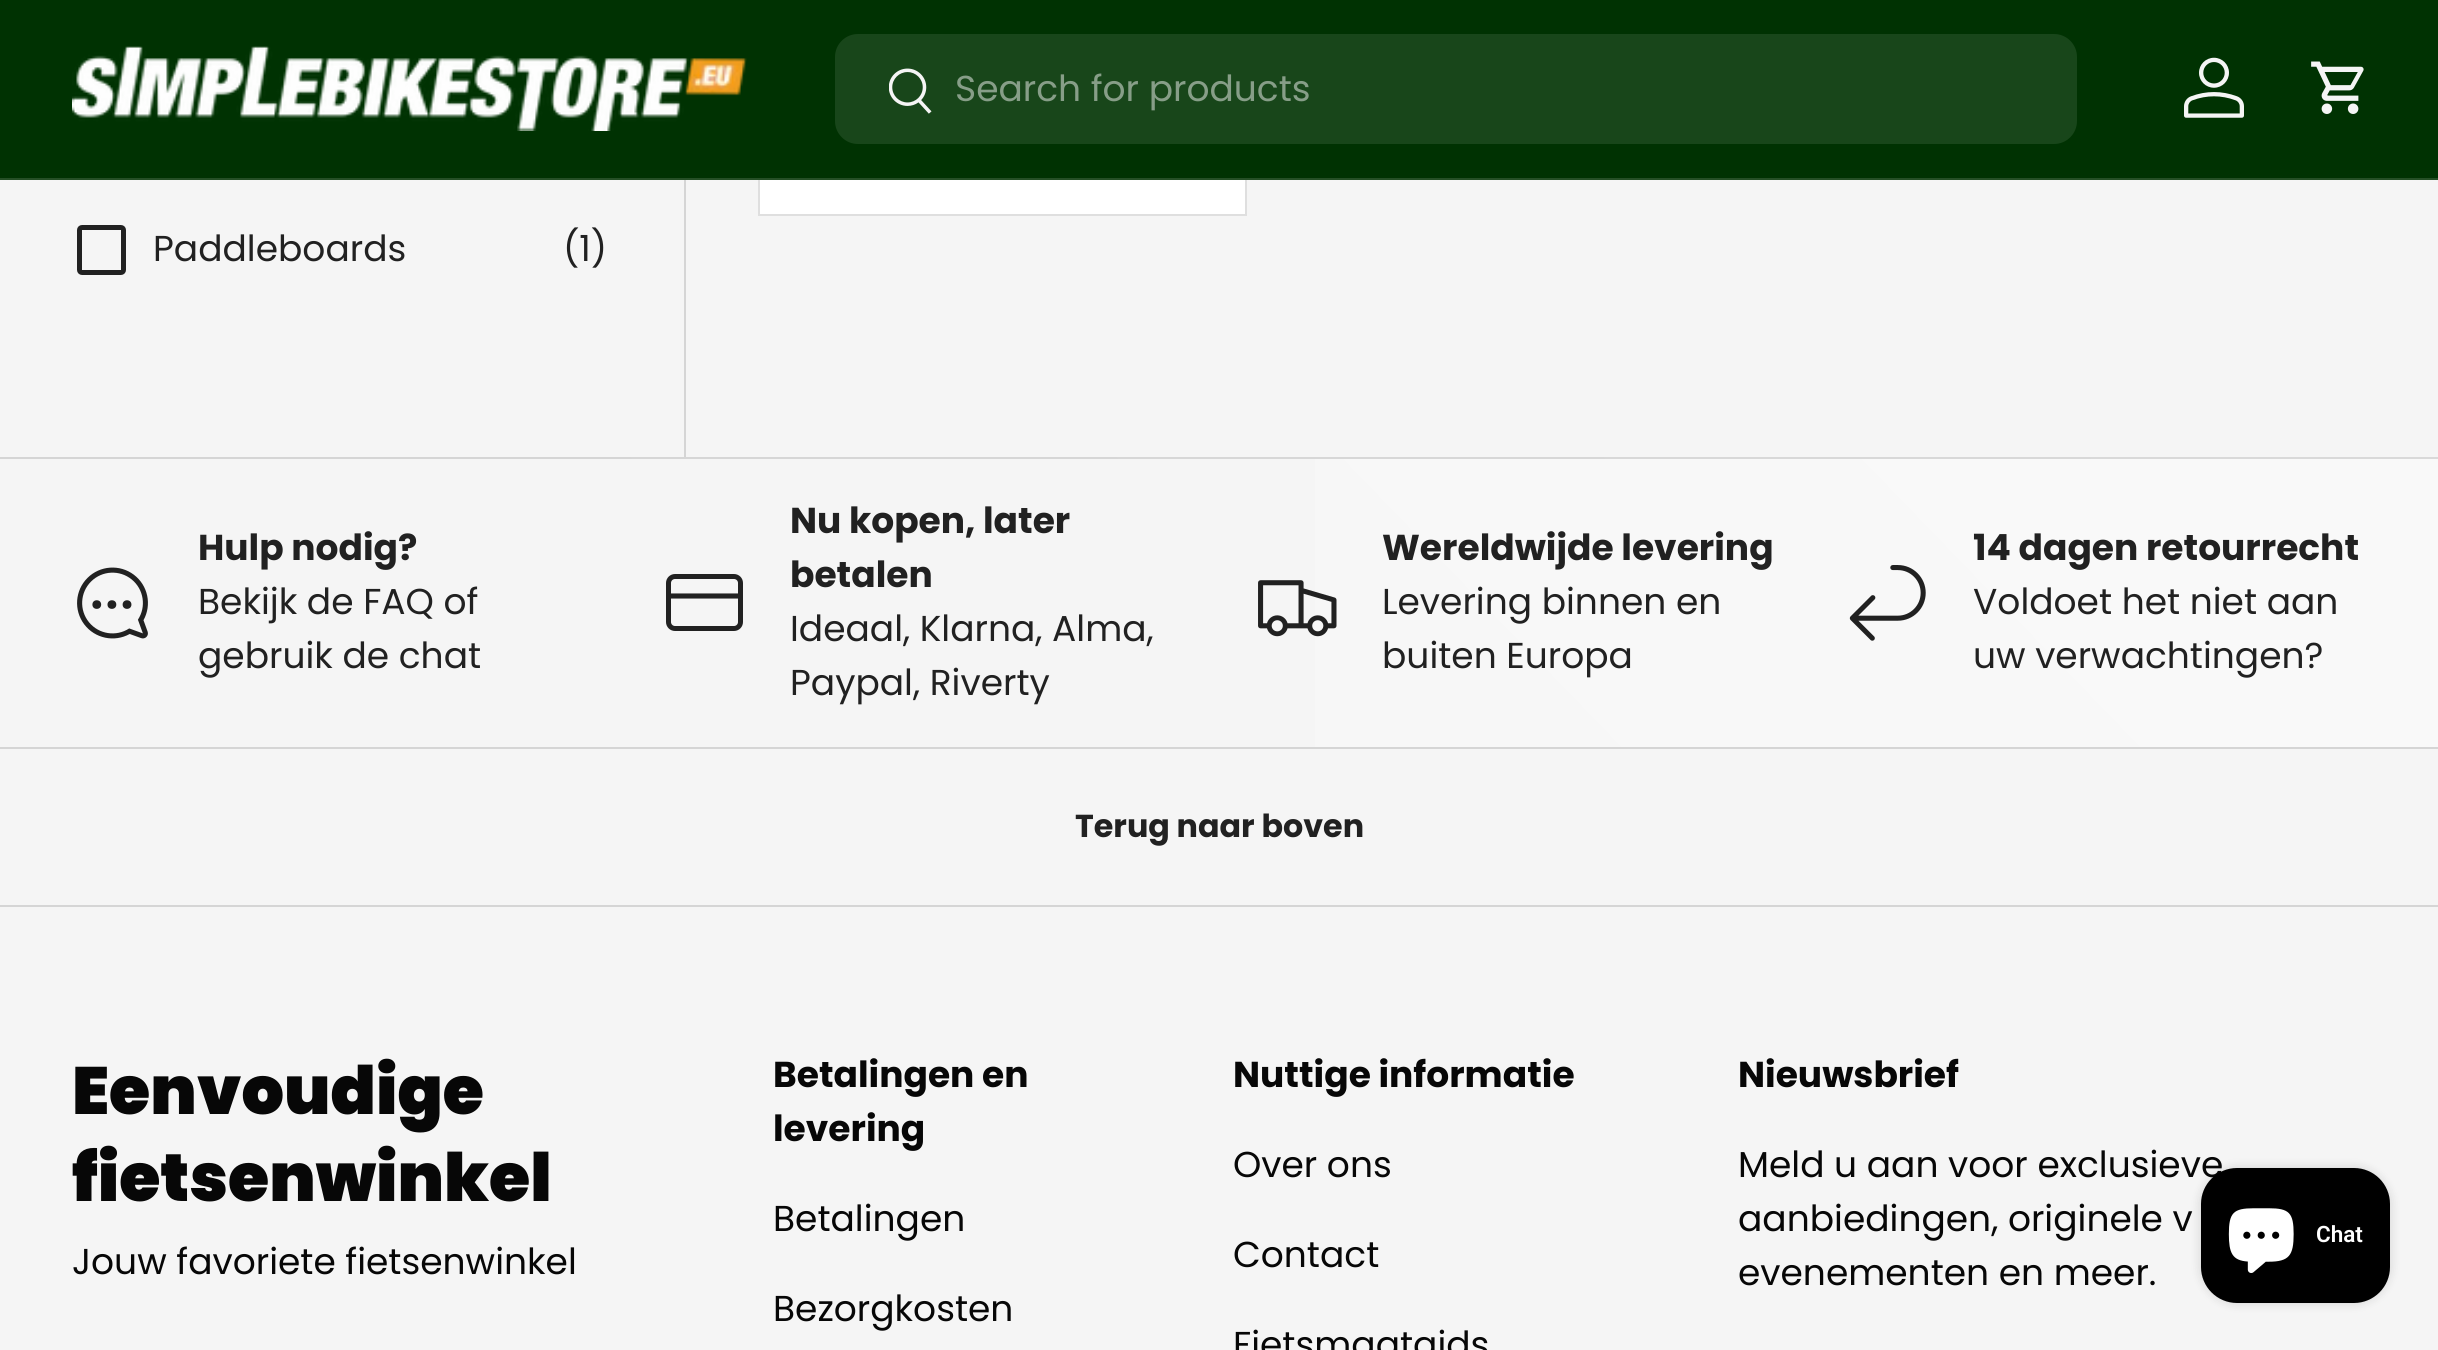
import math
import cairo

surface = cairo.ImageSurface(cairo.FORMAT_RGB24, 2438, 1350)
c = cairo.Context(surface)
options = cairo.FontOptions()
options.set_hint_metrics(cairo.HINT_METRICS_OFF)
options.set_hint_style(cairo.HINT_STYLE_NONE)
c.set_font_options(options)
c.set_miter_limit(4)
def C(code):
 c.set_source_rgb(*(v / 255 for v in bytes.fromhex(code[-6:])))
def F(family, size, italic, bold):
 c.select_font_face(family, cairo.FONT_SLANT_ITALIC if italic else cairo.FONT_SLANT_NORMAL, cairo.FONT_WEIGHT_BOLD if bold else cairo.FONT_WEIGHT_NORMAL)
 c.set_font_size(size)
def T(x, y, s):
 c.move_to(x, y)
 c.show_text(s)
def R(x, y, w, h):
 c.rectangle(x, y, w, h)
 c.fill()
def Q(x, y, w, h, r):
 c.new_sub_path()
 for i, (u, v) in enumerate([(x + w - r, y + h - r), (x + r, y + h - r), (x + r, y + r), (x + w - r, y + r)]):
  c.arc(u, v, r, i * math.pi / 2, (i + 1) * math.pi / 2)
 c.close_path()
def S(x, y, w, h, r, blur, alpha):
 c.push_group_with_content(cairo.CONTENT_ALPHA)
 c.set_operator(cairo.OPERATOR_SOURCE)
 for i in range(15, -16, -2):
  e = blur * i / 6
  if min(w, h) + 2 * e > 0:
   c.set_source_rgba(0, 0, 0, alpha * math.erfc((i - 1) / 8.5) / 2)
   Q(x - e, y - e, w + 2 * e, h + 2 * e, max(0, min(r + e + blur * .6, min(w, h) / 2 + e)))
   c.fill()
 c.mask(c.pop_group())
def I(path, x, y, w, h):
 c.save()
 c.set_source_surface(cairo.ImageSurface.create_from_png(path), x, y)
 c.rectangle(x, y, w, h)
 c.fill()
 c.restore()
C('f5f5f5')
c.paint()
C('ffffff')
R(760,180,485,34)
c.rectangle(759,-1,487,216)
C('dfdfdf')
c.stroke()
C('003202')
R(0,0,2438,178)
C('254f26')
R(0,178,2438,2)
I('1.png',72,46,675,85)
C('18461a')
Q(835,34,1242,110,23)
c.fill()
I('2.png',889,68,43,46)
F('Poppins',36,0,0)
C('879e88')
T(955,101,'Search for products')
I('3.png',2184,57,60,61)
I('4.png',2311,61,53,53)
C('d5d5d5')
R(684,180,2,277)
Q(79.5,227.5,44,45,2.5)
C('212121')
c.set_line_width(5)
c.stroke()
T(153,261,'Paddleboards')
T(563,261,'(1)')
gradient = cairo.LinearGradient(517,994,1922,-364)
gradient.add_color_stop_rgba(.13,0.835,0.835,0.835,1)
gradient.add_color_stop_rgba(.86,0.851,0.851,0.851,1)
c.set_source(gradient)
R(0,457,2438,2)
gradient = cairo.LinearGradient(517,1282,1922,-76)
gradient.add_color_stop_rgba(.13,0.961,0.961,0.961,1)
gradient.add_color_stop_rgba(.86,0.976,0.976,0.976,1)
c.set_source(gradient)
R(1315,459,1123,288)
I('5.png',77,567,71,72)
F('Poppins',36,0,1)
C('212121')
T(198,560,'Hulp nodig?')
F('Poppins',36,0,0)
T(198,614,'Bekijk de FAQ of')
T(198,668,'gebruik de chat')
Q(668.5,576.5,72,52,6.5)
c.stroke()
c.new_path()
c.move_to(668.5,596)
c.line_to(740.5,596)
c.set_line_width(5.1)
c.stroke()
F('Poppins',36,0,1)
T(790,533,'Nu kopen, later')
T(790,587,'betalen')
F('Poppins',36,0,0)
T(790,641,'Ideaal, Klarna, Alma,')
T(790,695,'Paypal, Riverty')
I('6.png',1258,580,79,57)
F('Poppins',36,0,1)
T(1382,560,'Wereldwijde levering')
F('Poppins',36,0,0)
T(1382,614,'Levering binnen en')
T(1382,668,'buiten Europa')
I('7.png',1849,565,77,76)
F('Poppins',36,0,1)
T(1973,560,'14 dagen retourrecht')
F('Poppins',36,0,0)
T(1973,614,'Voldoet het niet aan')
T(1973,668,'uw verwachtingen?')
C('d5d5d5')
R(0,747,2438,2)
R(0,905,2438,2)
F('Poppins',31.75,0,1)
C('212121')
T(1075,837,'Terug naar boven')
F('Poppins Black',66.75,0,0)
C('070707')
T(72,1114,'Eenvoudige')
T(72,1201,'fietsenwinkel')
F('Poppins',36,0,0)
T(72,1274,'Jouw favoriete fietsenwinkel')
F('Poppins',36,0,1)
T(773,1087,'Betalingen en')
T(773,1141,'levering')
F('Poppins',36,0,0)
T(773,1231,'Betalingen')
T(773,1321,'Bezorgkosten')
F('Poppins',36,0,1)
T(1233,1087,'Nuttige informatie')
F('Poppins',36,0,0)
T(1233,1177,'Over ons')
T(1233,1267,'Contact')
T(1233,1357,'Fietsmaatgids')
F('Poppins',36,0,1)
T(1738,1087,'Nieuwsbrief')
F('Poppins',36,0,0)
T(1738,1177,'Meld u aan voor exclusieve')
T(1738,1231,'aanbiedingen, originele v')
T(1738,1285,'evenementen en meer.')
C('000000')
S(2201,1168,189,135,36,5.5,.15)
C('000000')
Q(2201,1168,189,135,36)
c.fill()
I('8.png',2228,1208,66,65)
F('Roboto SemiBold',22.5,0,0)
C('ffffff')
T(2316,1242,'Chat')
surface.write_to_png('o.png')
